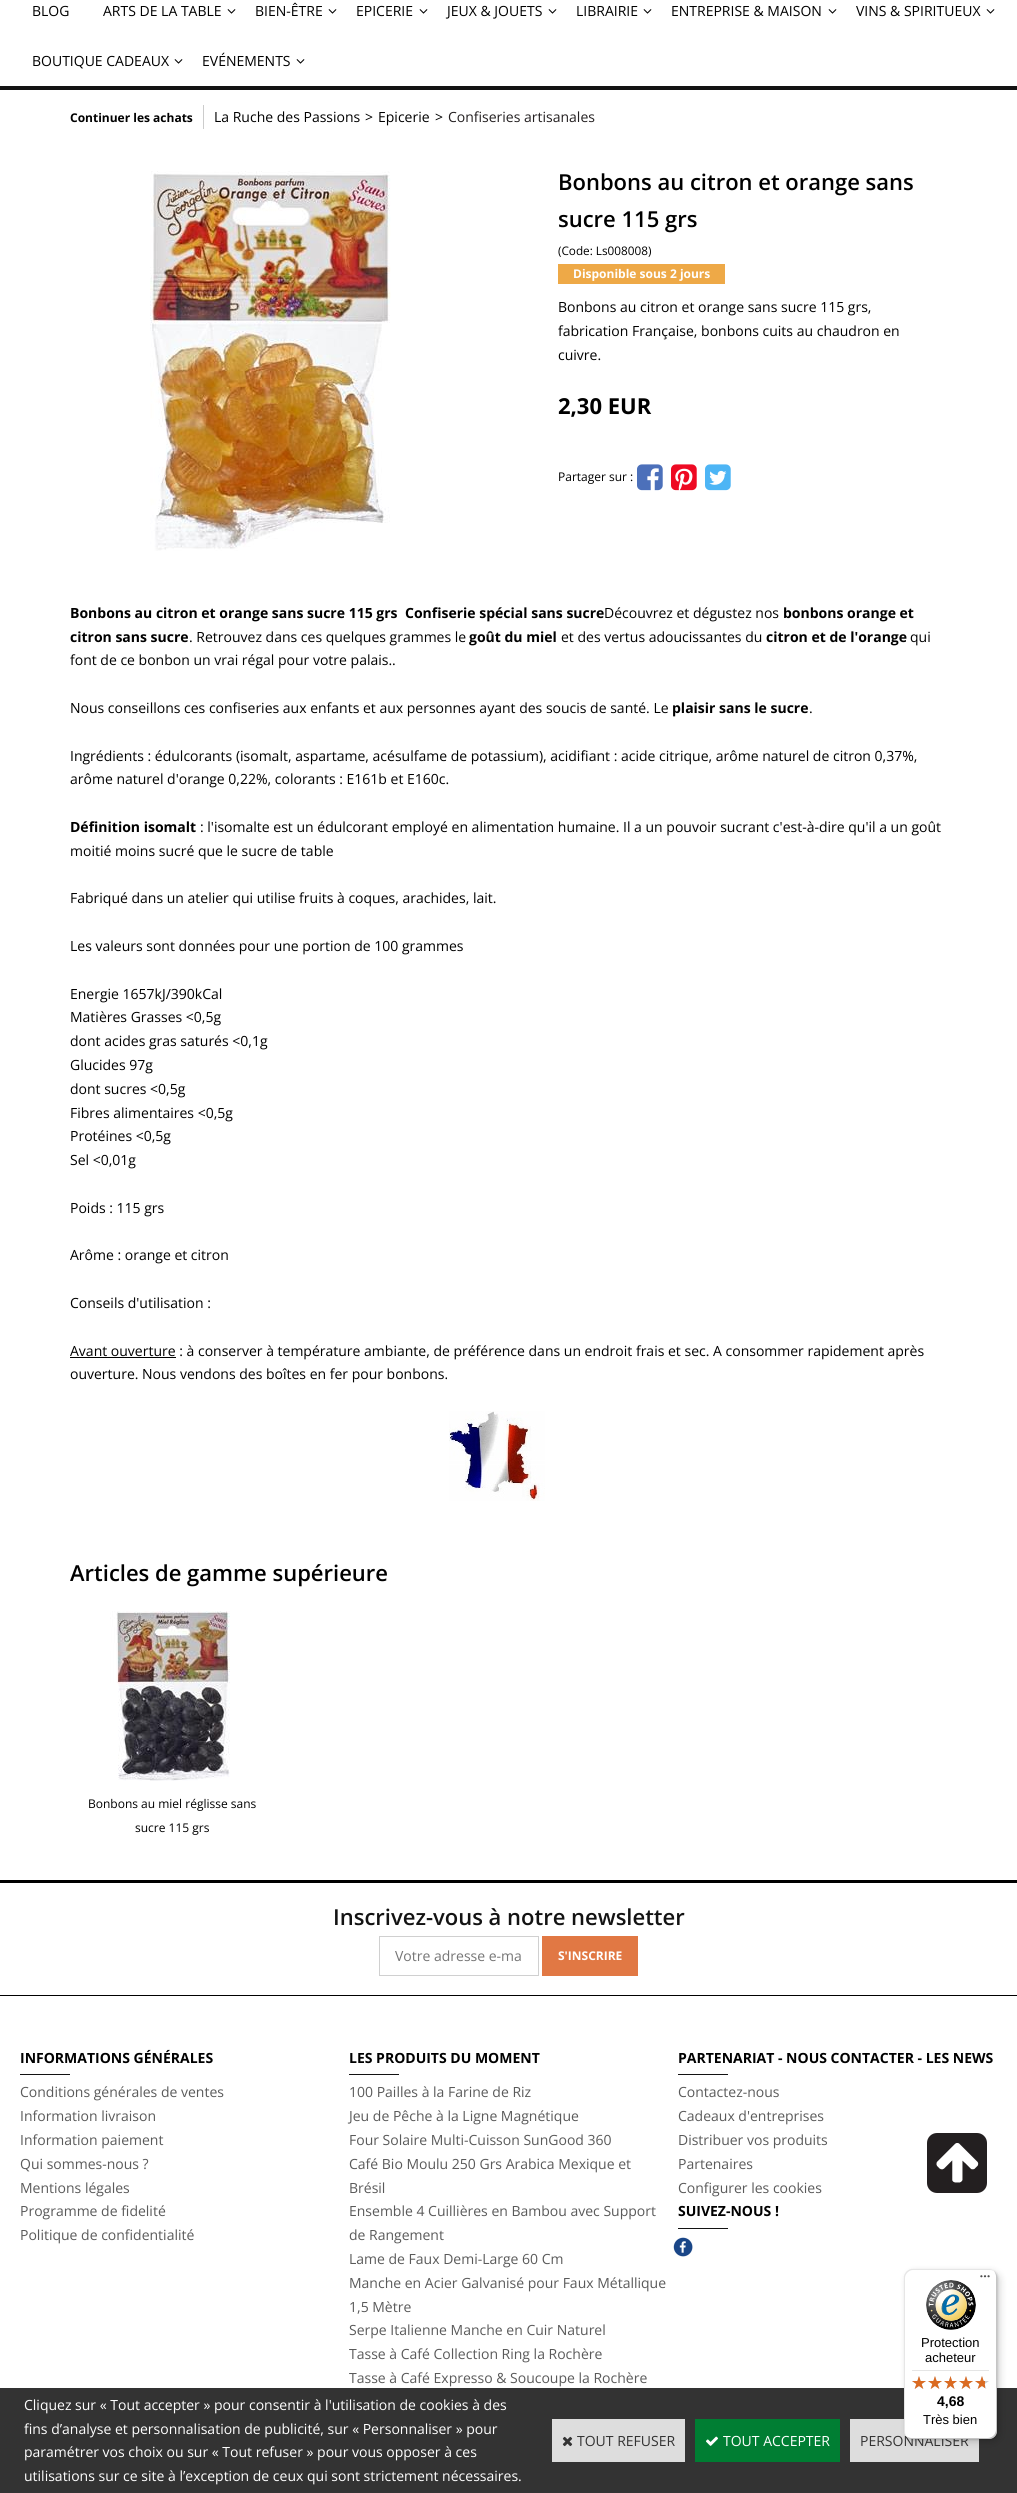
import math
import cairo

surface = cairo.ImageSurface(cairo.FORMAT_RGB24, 1017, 2493)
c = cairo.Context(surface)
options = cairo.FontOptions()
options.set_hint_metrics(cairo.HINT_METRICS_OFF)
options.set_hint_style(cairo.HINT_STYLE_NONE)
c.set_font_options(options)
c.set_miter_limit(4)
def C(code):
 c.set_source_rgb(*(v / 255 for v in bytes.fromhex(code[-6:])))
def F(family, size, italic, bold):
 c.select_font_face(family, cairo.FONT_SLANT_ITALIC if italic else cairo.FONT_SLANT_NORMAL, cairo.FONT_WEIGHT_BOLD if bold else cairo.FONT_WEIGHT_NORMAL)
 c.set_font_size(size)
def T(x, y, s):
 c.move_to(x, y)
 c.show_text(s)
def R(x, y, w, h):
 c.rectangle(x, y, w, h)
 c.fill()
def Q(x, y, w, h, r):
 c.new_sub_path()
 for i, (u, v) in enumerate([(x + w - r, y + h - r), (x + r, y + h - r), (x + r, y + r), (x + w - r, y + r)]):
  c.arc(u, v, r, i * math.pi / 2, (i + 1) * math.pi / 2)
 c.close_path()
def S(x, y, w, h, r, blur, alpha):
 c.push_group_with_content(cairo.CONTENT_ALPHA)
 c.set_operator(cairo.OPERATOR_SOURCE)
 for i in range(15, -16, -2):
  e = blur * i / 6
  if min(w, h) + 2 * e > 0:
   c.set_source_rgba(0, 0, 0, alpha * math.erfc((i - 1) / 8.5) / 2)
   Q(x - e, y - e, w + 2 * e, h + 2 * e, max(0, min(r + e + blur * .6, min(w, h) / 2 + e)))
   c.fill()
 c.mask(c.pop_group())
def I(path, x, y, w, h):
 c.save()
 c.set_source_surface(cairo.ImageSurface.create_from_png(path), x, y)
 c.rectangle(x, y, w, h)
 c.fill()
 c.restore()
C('ffffff')
c.paint()
C('131313')
R(0,86,1017,4)
F('Open Sans',14,0,0)
C('000000')
T(32,16,'BLOG')
T(103,16,'ARTS DE LA TABLE')
I('1.png',227,9,9,5)
T(255,16,'BIEN-ÊTRE')
I('1.png',328,9,9,5)
T(356,16,'EPICERIE')
I('1.png',419,9,9,5)
T(447,16,'JEUX & JOUETS')
I('1.png',548,9,9,5)
T(576,16,'LIBRAIRIE')
I('1.png',643,9,9,5)
T(671,16,'ENTREPRISE & MAISON')
I('1.png',828,9,9,5)
T(856,16,'VINS & SPIRITUEUX')
I('1.png',986,9,9,5)
T(32,66,'BOUTIQUE CADEAUX')
I('1.png',174,59,9,5)
T(202,66,'EVÉNEMENTS')
I('1.png',296,59,9,5)
F('Open Sans',12,0,1)
T(70,122,'Continuer les achats')
C('cccccc')
R(203,105,1,24)
F('Open Sans',14,0,0)
C('000000')
T(214,122,'La Ruche des Passions')
T(365,122,'>')
T(378,122,'Epicerie')
T(435,122,'>')
C('231f20')
T(448,122,'Confiseries artisanales')
I('2.png',150,171,241,380)
F('Open Sans SemiBold',22,0,0)
C('000000')
T(558,190,'Bonbons au citron et orange sans')
T(558,227,'sucre 115 grs')
F('Open Sans',11.75,0,0)
T(558,255,'(Code: Ls008008)')
C('eea947')
R(558,264,167,20)
F('Open Sans',12,0,1)
C('ffffff')
T(573,278,'Disponible sous 2 jours')
F('Open Sans',14,0,0)
C('000000')
T(558,312,'Bonbons au citron et orange sans sucre 115 grs,')
T(558,336,'fabrication Française, bonbons cuits au chaudron en')
T(558,360,'cuivre.')
F('Open Sans',22,0,1)
T(558,414,'2,30 EUR')
F('Open Sans',12,0,0)
T(558,481,'Partager sur :')
I('3.png',637,464,26,27)
I('4.png',671,464,26,27)
I('5.png',705,464,26,27)
F('Open Sans',14,0,1)
T(70,618,'Bonbons au citron et orange sans sucre 115 grs')
T(405,618,'Confiserie spécial sans sucre')
F('Open Sans',14,0,0)
T(604,618,'Découvrez et dégustez nos')
F('Open Sans',14,0,1)
T(783,618,'bonbons orange et')
T(70,642,'citron sans sucre')
F('Open Sans',14,0,0)
T(189,642,'. Retrouvez dans ces quelques grammes le')
F('Open Sans',14,0,1)
T(469,642,'goût du miel')
F('Open Sans',14,0,0)
T(561,642,'et des vertus adoucissantes du')
F('Open Sans',14,0,1)
T(766,642,'citron et de l\'orange')
F('Open Sans',14,0,0)
T(910,642,'qui')
T(70,665,'font de ce bonbon un vrai régal pour votre palais..')
T(70,713,'Nous conseillons ces confiseries aux enfants et aux personnes ayant des soucis de santé. Le')
F('Open Sans',14,0,1)
T(672,713,'plaisir sans le sucre')
F('Open Sans',14,0,0)
T(809,713,'.')
T(70,761,'Ingrédients : édulcorants (isomalt, aspartame, acésulfame de potassium), acidifiant : acide citrique, arôme naturel de citron 0,37%,')
T(70,784,'arôme naturel d\'orange 0,22%, colorants : E161b et E160c.')
F('Open Sans',14,0,1)
T(70,832,'Définition isomalt')
F('Open Sans',14,0,0)
T(200,832,': l\'isomalte est un édulcorant employé en alimentation humaine. Il a un pouvoir sucrant c\'est-à-dire qu\'il a un goût')
T(70,856,'moitié moins sucré que le sucre de table')
T(70,903,'Fabriqué dans un atelier qui utilise fruits à coques, arachides, lait.')
T(70,951,'Les valeurs sont données pour une portion de 100 grammes')
T(70,999,'Energie 1657kJ/390kCal')
T(70,1022,'Matières Grasses <0,5g')
T(70,1046,'dont acides gras saturés <0,1g')
T(70,1070,'Glucides 97g')
T(70,1094,'dont sucres <0,5g')
T(70,1118,'Fibres alimentaires <0,5g')
T(70,1141,'Protéines <0,5g')
T(70,1165,'Sel <0,01g')
T(70,1213,'Poids : 115 grs')
T(70,1260,'Arôme : orange et citron')
T(70,1308,'Conseils d\'utilisation :')
R(70,1357,106,1)
T(70,1356,'Avant ouverture : à conserver à température ambiante, de préférence dans un endroit frais et sec. A consommer rapidement après')
T(70,1379,'ouverture. Nous vendons des boîtes en fer pour bonbons.')
I('6.png',449,1411,96,90)
F('Open Sans SemiBold',22,0,0)
T(70,1581,'Articles de gamme supérieure')
I('7.png',110,1611,120,170)
F('Open Sans',12,0,0)
T(88,1808,'Bonbons au miel réglisse sans')
T(135,1832,'sucre 115 grs')
R(0,1880,1017,3)
F('Open Sans SemiBold',22,0,0)
C('131313')
T(333,1925,'Inscrivez-vous à notre newsletter')
c.rectangle(379.5,1936.5,159,39)
C('d0d0d0')
c.set_line_width(1)
c.stroke()
F('Open Sans',14,0,0)
C('757575')
T(395,1961,'Votre adresse e-ma')
C('e17844')
R(542,1936,96,40)
F('Open Sans',12,0,1)
C('ffffff')
T(558,1960,'S\'INSCRIRE')
C('000000')
R(0,1995,1017,1)
F('Open Sans',14,0,1)
T(20,2063,'INFORMATIONS GÉNÉRALES')
C('131313')
R(20,2074,50,1)
F('Open Sans',14,0,0)
C('5a5a5a')
T(20,2097,'Conditions générales de ventes')
T(20,2121,'Information livraison')
T(20,2145,'Information paiement')
T(20,2169,'Qui sommes-nous ?')
T(20,2193,'Mentions légales')
T(20,2216,'Programme de fidelité')
T(20,2240,'Politique de confidentialité')
F('Open Sans',14,0,1)
C('000000')
T(349,2063,'LES PRODUITS DU MOMENT')
C('131313')
R(349,2074,50,1)
F('Open Sans',14,0,0)
C('5a5a5a')
T(349,2097,'100 Pailles à la Farine de Riz')
T(349,2121,'Jeu de Pêche à la Ligne Magnétique')
T(349,2145,'Four Solaire Multi-Cuisson SunGood 360')
T(349,2169,'Café Bio Moulu 250 Grs Arabica Mexique et')
T(349,2193,'Brésil')
T(349,2216,'Ensemble 4 Cuillières en Bambou avec Support')
T(349,2240,'de Rangement')
T(349,2264,'Lame de Faux Demi-Large 60 Cm')
T(349,2288,'Manche en Acier Galvanisé pour Faux Métallique')
T(349,2312,'1,5 Mètre')
T(349,2335,'Serpe Italienne Manche en Cuir Naturel')
T(349,2359,'Tasse à Café Collection Ring la Rochère')
T(349,2383,'Tasse à Café Expresso & Soucoupe la Rochère')
F('Open Sans',14,0,1)
C('000000')
T(678,2063,'PARTENARIAT - NOUS CONTACTER - LES NEWS')
C('131313')
R(678,2074,50,1)
F('Open Sans',14,0,0)
C('5a5a5a')
T(678,2097,'Contactez-nous')
T(678,2121,'Cadeaux d\'entreprises')
T(678,2145,'Distribuer vos produits')
T(678,2169,'Partenaires')
T(678,2193,'Configurer les cookies')
F('Open Sans',14,0,1)
C('000000')
T(678,2216,'SUIVEZ-NOUS !')
C('131313')
R(678,2228,50,1)
I('8.png',673,2237,20,20)
C('231f20')
Q(927,2133,60,60,10)
c.fill()
I('9.png',936,2143,43,40)
C('333333')
R(0,2388,1017,105)
F('Open Sans',14,0,0)
C('ffffff')
T(24,2410,'Cliquez sur « Tout accepter » pour consentir à l\'utilisation de cookies à des')
T(24,2434,'fins d’analyse et personnalisation de publicité, sur « Personnaliser » pour')
T(24,2457,'paramétrer vos choix ou sur « Tout refuser » pour vous opposer à ces')
T(24,2481,'utilisations sur ce site à l’exception de ceux qui sont strictement nécessaires.')
C('dddddd')
R(552,2419,133,43)
I('10.png',562,2436,11,11)
C('333333')
T(577,2446,'TOUT REFUSER')
C('007e33')
R(695,2419,145,43)
I('11.png',706,2436,12,10)
C('ffffff')
T(723,2446,'TOUT ACCEPTER')
C('dddddd')
R(850,2419,129,43)
C('333333')
T(860,2446,'PERSONNALISER')
C('000000')
S(907,2272,93,170,8,4,.15)
S(905,2270,93,170,8,1,.15)
C('ffffff')
Q(904,2269,93,170,8)
c.fill()
c.set_source_rgba(0,0,0,0.1)
c.new_path()
c.move_to(913,2270)
c.line_to(990,2270)
c.curve_to(992,2270,994,2271,996,2273)
c.curve_to(994,2271,992,2269,989,2269)
c.line_to(912,2269)
c.curve_to(908,2269,904,2273,904,2277)
c.line_to(904,2431)
c.curve_to(904,2434,906,2436,908,2438)
c.curve_to(906,2436,905,2434,905,2432)
c.line_to(905,2278)
c.curve_to(905,2274,909,2270,913,2270)
c.close_path()
c.fill()
c.set_source_rgba(0,0,0,0.2)
c.new_path()
c.move_to(905,2435)
c.curve_to(907,2437,909,2439,912,2439)
c.line_to(989,2439)
c.curve_to(993,2439,997,2435,997,2431)
c.line_to(997,2277)
c.curve_to(997,2274,995,2272,993,2270)
c.curve_to(995,2272,996,2274,996,2276)
c.line_to(996,2430)
c.curve_to(996,2434,992,2438,988,2438)
c.line_to(911,2438)
c.curve_to(909,2438,907,2437,905,2435)
c.close_path()
c.fill()
c.set_source_rgba(0.196,0.196,0.196,0.2)
c.new_path()
c.move_to(906,2436)
c.curve_to(907,2438,910,2439,912,2439)
c.line_to(989,2439)
c.curve_to(993,2439,997,2435,997,2431)
c.line_to(997,2277)
c.curve_to(997,2275,996,2272,994,2271)
c.curve_to(995,2272,996,2274,996,2276)
c.line_to(996,2430)
c.curve_to(996,2435,993,2438,988,2438)
c.line_to(911,2438)
c.curve_to(909,2438,907,2437,906,2436)
c.close_path()
c.fill()
c.set_source_rgba(1,1,1,0.3)
c.new_path()
c.move_to(904,2430)
c.line_to(904,2431)
c.curve_to(904,2435,908,2439,912,2439)
c.line_to(989,2439)
c.curve_to(993,2439,997,2435,997,2431)
c.line_to(997,2277)
c.curve_to(997,2275,996,2272,994,2271)
c.curve_to(995,2272,996,2274,996,2276)
c.line_to(996,2430)
c.curve_to(996,2435,993,2438,988,2438)
c.line_to(912,2438)
c.curve_to(907,2438,904,2435,904,2430)
c.close_path()
c.fill()
I('12.png',980,2275,10,3)
I('13.png',926,2280,50,50)
F('Liberation Sans',13,0,0)
C('000000')
T(921,2347,'Protection')
T(925,2362,'acheteur')
C('e5e5e5')
R(912,2370,77,1)
I('14.png',912,2376,14,13)
I('14.png',928,2376,14,13)
I('15.png',944,2376,13,13)
I('14.png',959,2376,14,13)
I('14.png',975,2376,14,13)
I('16.png',912,2376,14,13)
I('16.png',928,2376,14,13)
I('17.png',944,2376,13,13)
I('16.png',959,2376,14,13)
I('18.png',975,2376,10,13)
F('Liberation Sans',14,0,1)
C('000000')
T(937,2406,'4,68')
F('Liberation Sans',13,0,0)
T(923,2424,'Très bien')
surface.write_to_png('o.png')
